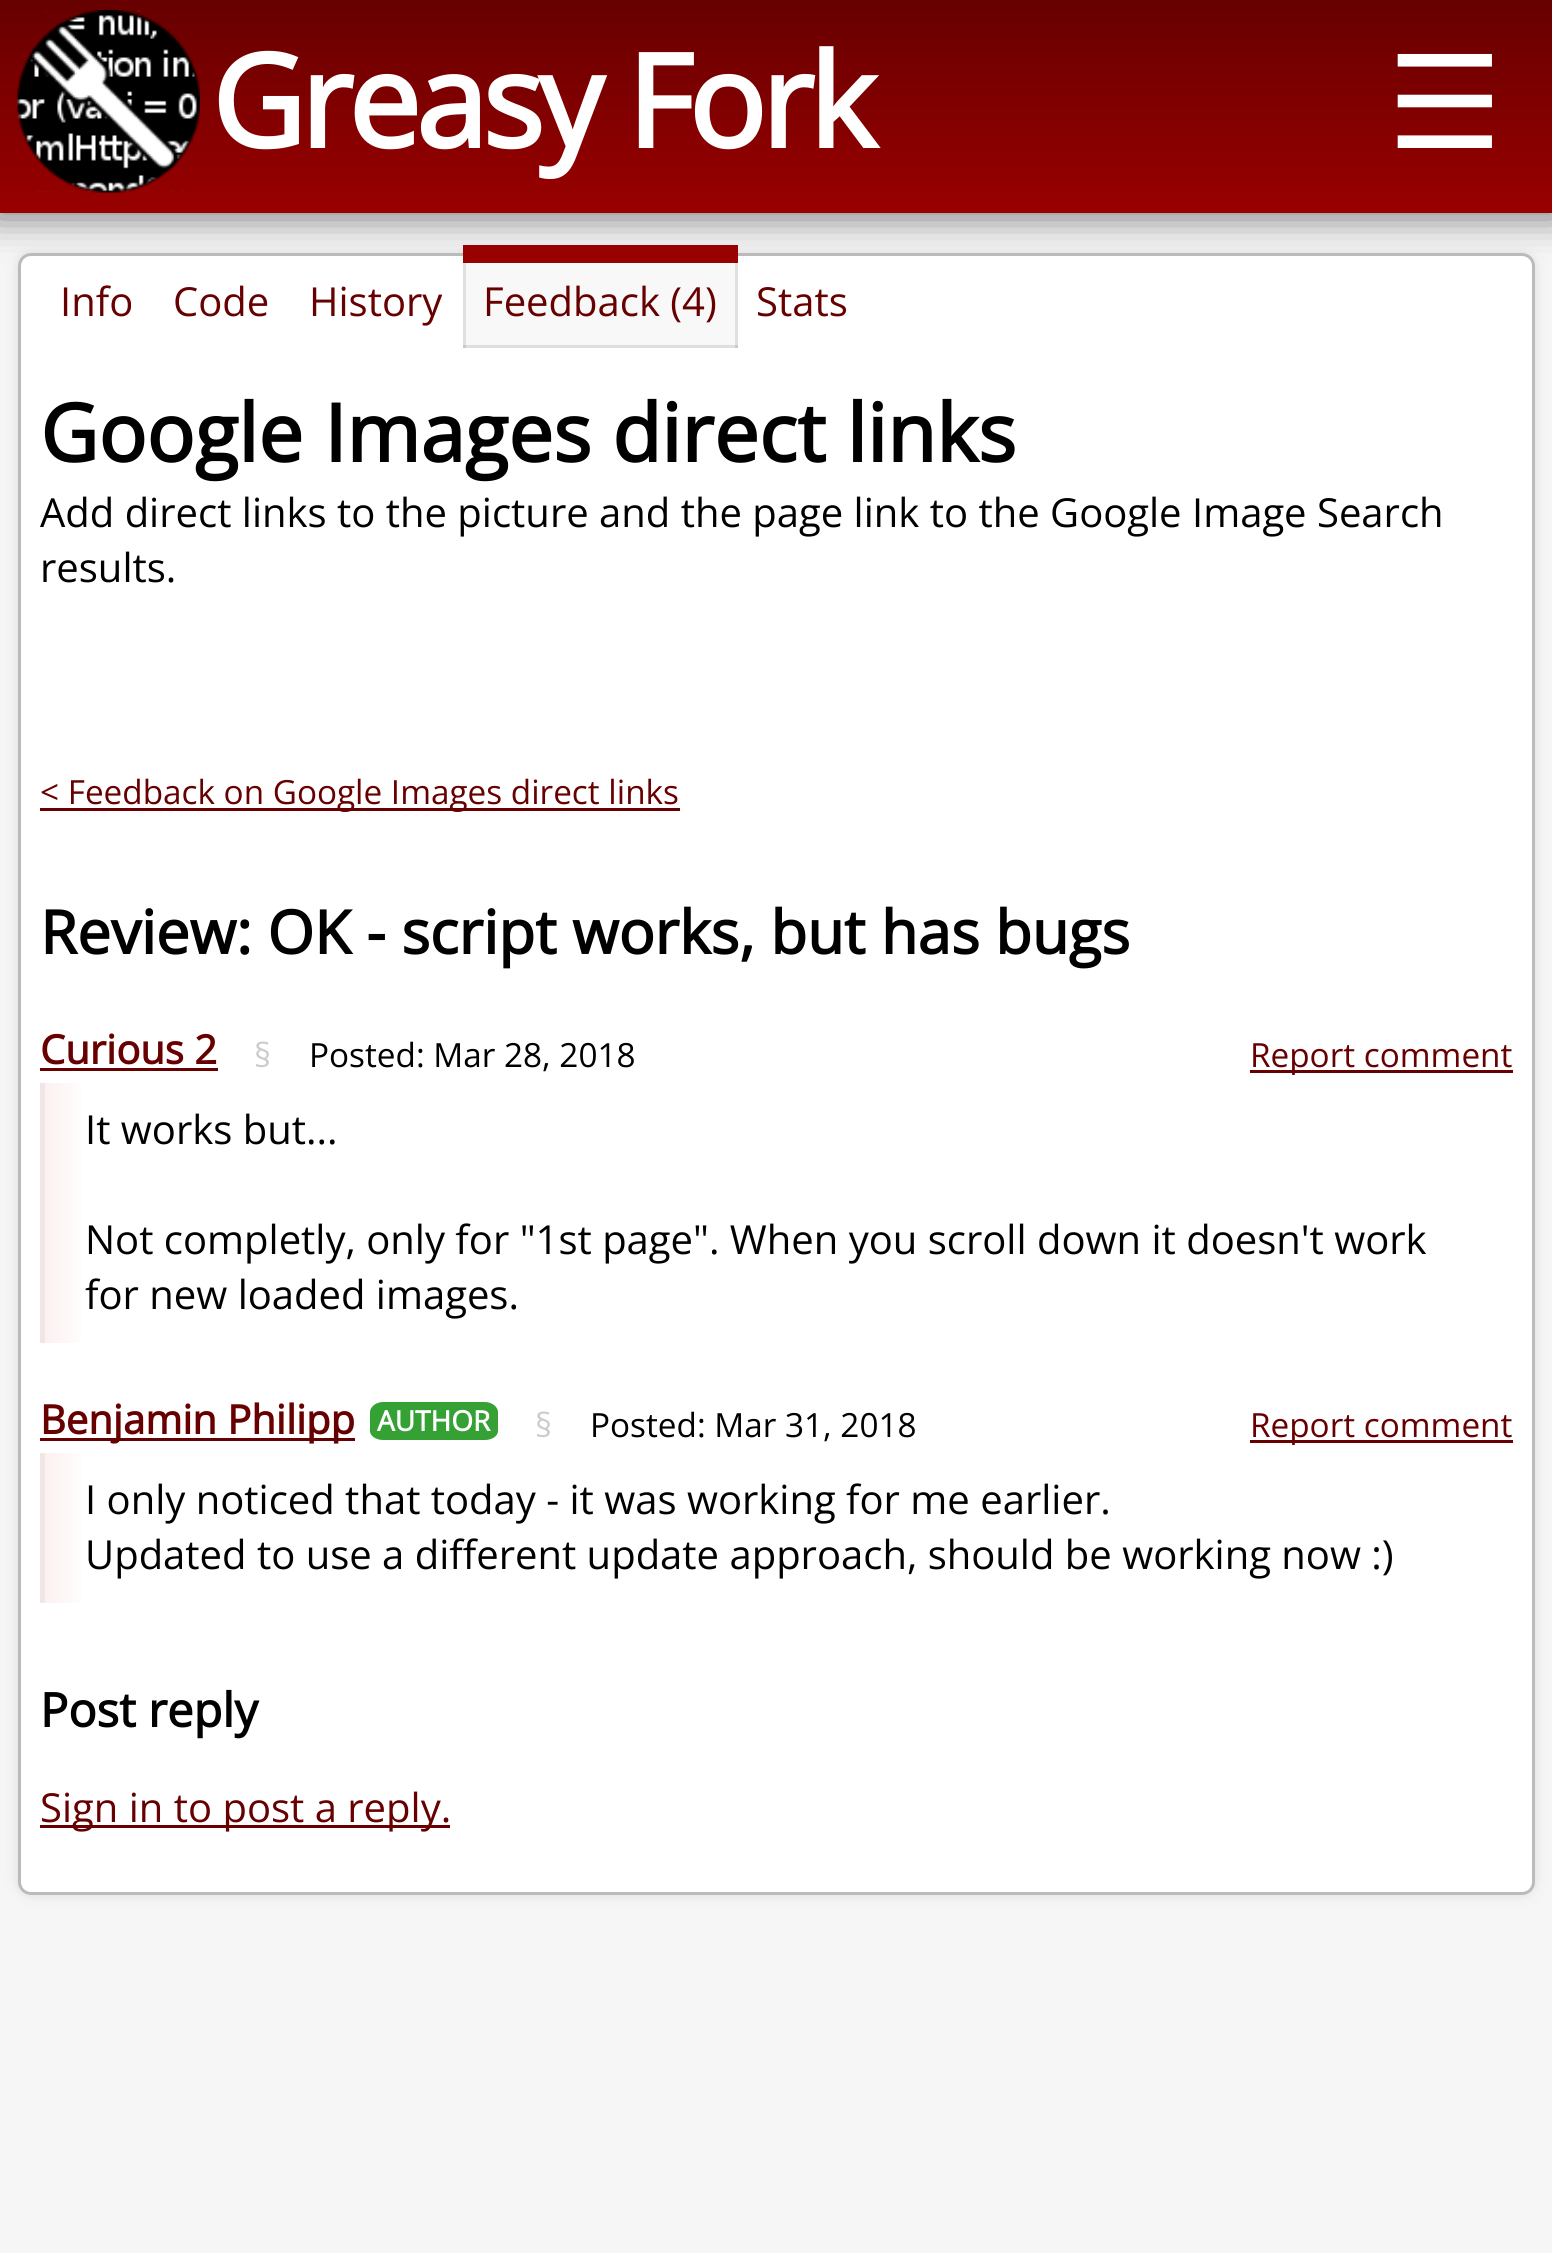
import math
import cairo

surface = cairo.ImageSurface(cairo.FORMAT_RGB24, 1552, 2253)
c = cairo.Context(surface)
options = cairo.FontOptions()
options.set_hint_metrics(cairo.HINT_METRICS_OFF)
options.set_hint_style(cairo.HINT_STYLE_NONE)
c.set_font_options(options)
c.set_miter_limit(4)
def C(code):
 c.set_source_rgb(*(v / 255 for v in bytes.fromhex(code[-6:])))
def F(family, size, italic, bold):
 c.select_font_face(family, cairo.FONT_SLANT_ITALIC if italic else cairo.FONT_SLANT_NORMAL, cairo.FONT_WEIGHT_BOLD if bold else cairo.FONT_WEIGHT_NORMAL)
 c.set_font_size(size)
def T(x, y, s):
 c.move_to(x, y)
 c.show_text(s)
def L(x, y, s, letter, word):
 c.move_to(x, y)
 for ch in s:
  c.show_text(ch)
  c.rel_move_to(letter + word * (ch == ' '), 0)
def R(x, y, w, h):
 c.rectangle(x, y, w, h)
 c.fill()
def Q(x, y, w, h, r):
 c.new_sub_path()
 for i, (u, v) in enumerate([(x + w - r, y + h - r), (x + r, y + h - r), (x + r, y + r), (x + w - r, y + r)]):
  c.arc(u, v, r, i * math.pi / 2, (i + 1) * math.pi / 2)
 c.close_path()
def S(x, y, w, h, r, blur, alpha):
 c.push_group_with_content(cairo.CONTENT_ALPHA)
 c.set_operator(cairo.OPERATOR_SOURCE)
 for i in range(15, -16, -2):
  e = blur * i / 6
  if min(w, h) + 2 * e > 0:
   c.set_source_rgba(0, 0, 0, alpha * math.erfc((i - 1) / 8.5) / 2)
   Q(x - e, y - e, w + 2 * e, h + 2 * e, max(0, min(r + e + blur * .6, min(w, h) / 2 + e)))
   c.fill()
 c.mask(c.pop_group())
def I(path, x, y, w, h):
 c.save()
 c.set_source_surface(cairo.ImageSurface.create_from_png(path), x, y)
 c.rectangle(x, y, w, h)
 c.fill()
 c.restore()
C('f6f6f6')
c.paint()
C('000000')
S(-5,-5,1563,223,0,19,.5)
gradient = cairo.LinearGradient(776,0,776,213)
gradient.add_color_stop_rgba(0,0.404,0,0,1)
gradient.add_color_stop_rgba(1,0.6,0,0,1)
c.set_source(gradient)
R(0,0,1552,213)
I('1.png',17,10,183,183)
F('Open Sans',129,0,1)
C('ffffff')
L(211,148,'Greasy Fork',-5,0)
F('DejaVu Sans',129,0,0)
T(1387,148,'☰')
C('dddddd')
S(18,253,1517,1642,13,6,1)
C('ffffff')
Q(19.5,254.5,1514,1639,11.5)
c.fill_preserve()
C('bbbbbb')
c.set_line_width(3)
c.stroke()
F('Open Sans',40,0,0)
C('670000')
T(60,316,'Info')
T(173,316,'Code')
T(309,316,'History')
c.set_source_rgba(0,0,0,0.03)
R(463,263,275,82)
C('dfdfdf')
R(463,345,275,3)
c.set_source_rgba(0,0,0,0.1)
R(735,263,3,85)
R(463,263,3,85)
C('990000')
R(463,245,275,18)
C('670000')
T(483,316,'Feedback (4)')
T(756,316,'Stats')
F('Open Sans',80,0,1)
C('000000')
T(40,462,'Google Images direct links')
F('Open Sans',40,0,0)
T(40,527,'Add direct links to the picture and the page link to the Google Image Search')
T(40,582,'results.')
C('670000')
R(40,808,640,3)
F('Open Sans',33.3,0,0)
T(40,804,'< Feedback on Google Images direct links')
F('Open Sans',60,0,1)
C('000000')
T(40,954,'Review: OK - script works, but has bugs')
F('Open Sans',40,0,1)
C('670000')
T(40,1064,'Curious 2')
R(40,1068,178,3)
F('Open Sans',33.3,0,0)
C('cccccc')
T(254,1067,'§')
C('000000')
T(309,1067,'Posted: Mar 28, 2018')
C('670000')
R(1250,1070,263,3)
T(1250,1067,'Report comment')
gradient = cairo.LinearGradient(45,1213,1513,1213)
gradient.add_color_stop_rgba(0,0.988,0.945,0.945,1)
gradient.add_color_stop_rgba(.03,1,1,1,1)
c.set_source(gradient)
R(45,1083,36,260)
C('f2e5e5')
R(40,1083,5,260)
F('Open Sans',40,0,0)
C('000000')
T(85,1144,'It works but...')
T(85,1254,'Not completly, only for "1st page". When you scroll down it doesn\'t work')
T(85,1309,'for new loaded images.')
C('670000')
R(40,1438,315,3)
F('Open Sans',40,0,1)
T(40,1434,'Benjamin Philipp')
C('35a135')
c.new_path()
c.move_to(383,1402)
c.line_to(485,1402)
c.curve_to(492,1402,498,1407,498,1412)
c.line_to(498,1431)
c.curve_to(498,1436,492,1440,485,1440)
c.line_to(383,1440)
c.curve_to(376,1440,370,1436,370,1431)
c.line_to(370,1412)
c.curve_to(370,1407,376,1402,383,1402)
c.close_path()
c.fill()
F('Open Sans',28,0,1)
C('ffffff')
T(377,1431,'AUTHOR')
F('Open Sans',33.3,0,0)
C('cccccc')
T(535,1437,'§')
C('000000')
T(590,1437,'Posted: Mar 31, 2018')
C('670000')
R(1250,1440,263,3)
T(1250,1437,'Report comment')
gradient = cairo.LinearGradient(45,1528,1513,1528)
gradient.add_color_stop_rgba(0,0.988,0.945,0.945,1)
gradient.add_color_stop_rgba(.03,1,1,1,1)
c.set_source(gradient)
R(45,1453,36,150)
C('f2e5e5')
R(40,1453,5,150)
F('Open Sans',40,0,0)
C('000000')
T(85,1514,'I only noticed that today - it was working for me earlier.')
T(85,1569,'Updated to use a different update approach, should be working now :)')
F('Open Sans',47,0,1)
T(40,1727,'Post reply')
C('670000')
R(40,1825,410,3)
F('Open Sans',40,0,0)
T(40,1822,'Sign in to post a reply.')
surface.write_to_png('o.png')
